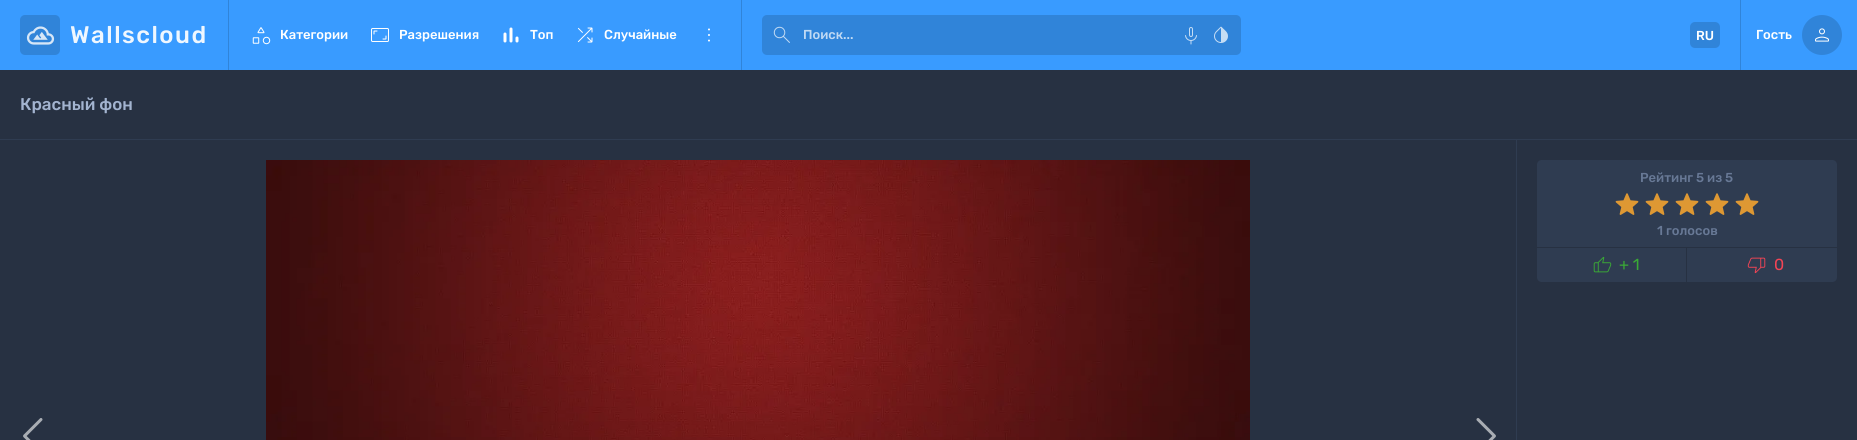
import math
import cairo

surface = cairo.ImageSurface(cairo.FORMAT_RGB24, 1857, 440)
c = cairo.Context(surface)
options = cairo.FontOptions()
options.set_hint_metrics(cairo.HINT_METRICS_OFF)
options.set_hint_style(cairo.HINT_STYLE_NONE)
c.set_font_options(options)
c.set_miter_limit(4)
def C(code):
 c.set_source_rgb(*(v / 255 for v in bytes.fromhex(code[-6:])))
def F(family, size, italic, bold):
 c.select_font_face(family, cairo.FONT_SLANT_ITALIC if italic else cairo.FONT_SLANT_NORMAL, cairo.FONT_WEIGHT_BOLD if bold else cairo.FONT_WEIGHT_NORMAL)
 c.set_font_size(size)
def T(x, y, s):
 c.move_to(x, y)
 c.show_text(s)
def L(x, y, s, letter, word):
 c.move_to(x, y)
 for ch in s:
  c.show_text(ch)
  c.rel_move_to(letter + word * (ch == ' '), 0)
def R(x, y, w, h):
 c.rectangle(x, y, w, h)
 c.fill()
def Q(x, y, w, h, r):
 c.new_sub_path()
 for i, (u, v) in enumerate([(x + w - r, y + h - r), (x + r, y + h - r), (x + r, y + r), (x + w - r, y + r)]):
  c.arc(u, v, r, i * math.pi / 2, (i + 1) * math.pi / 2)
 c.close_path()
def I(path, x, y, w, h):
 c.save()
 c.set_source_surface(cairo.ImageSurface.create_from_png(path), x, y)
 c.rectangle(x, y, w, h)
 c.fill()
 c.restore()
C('399bff')
c.paint()
C('3084d9')
Q(20,15,40,40,5)
c.fill()
I('1.png',26,26,29,19)
F('Rubik Medium',24,0,0)
C('eff7ff')
L(70,43,'Wallscloud',1.5,0)
C('3084d9')
R(228,0,1,70)
I('2.png',252,27,19,18)
F('Rubik Medium',13,0,0)
C('ffffff')
T(280,39,'Категории')
I('3.png',371,28,18,14)
T(399,39,'Разрешения')
I('4.png',503,27,16,16)
T(530,39,'Топ')
I('5.png',577,27,16,16)
T(604,39,'Случайные')
I('6.png',708,28,2,14)
C('3084d9')
R(741,0,1,70)
Q(762,15,479,40,5)
c.fill()
I('7.png',773,26,17,17)
C('c1daf4')
T(803,39,'Поиск...')
I('8.png',1185,27,12,18)
I('9.png',1214,26,14,17)
C('3084d9')
Q(1690,22,30,26,5)
c.fill()
C('ffffff')
T(1696,40,'RU')
C('3084d9')
R(1740,0,1,70)
C('ffffff')
T(1756,39,'Гость')
C('3084d9')
c.new_path()
c.arc(1822,35,20,0,2 * math.pi)
c.fill()
I('10.png',1815,28,14,14)
C('273142')
R(0,70,1857,69)
C('2f3c51')
R(0,139,1857,1)
F('Rubik Medium',17,0,0)
C('a3b4d0')
T(20,110,'Красный фон')
C('273142')
R(0,140,1857,300)
C('2f3c51')
R(1516,140,1,300)
I('11.png',266,160,984,280)
I('12.png',23,418,20,22)
I('13.png',1476,418,20,22)
c.new_path()
c.move_to(1542,160)
c.line_to(1832,160)
c.curve_to(1835,160,1837,162,1837,165)
c.line_to(1837,247)
c.line_to(1537,247)
c.line_to(1537,165)
c.curve_to(1537,162,1539,160,1542,160)
c.close_path()
c.fill()
F('Rubik Medium',13,0,0)
C('687996')
T(1640,182,'Рейтинг 5 из 5')
I('14.png',1615,193,24,22)
I('14.png',1645,193,24,22)
I('14.png',1675,193,24,22)
I('14.png',1705,193,24,22)
I('14.png',1735,193,24,22)
T(1657,235,'1 голосов')
C('2f3c51')
c.new_path()
c.move_to(1537,248)
c.line_to(1687,248)
c.line_to(1687,282)
c.line_to(1542,282)
c.curve_to(1539,282,1537,280,1537,277)
c.close_path()
c.fill()
C('273142')
R(1686,248,1,34)
I('15.png',1593,256,19,17)
F('Rubik',16,0,0)
C('3aaa35')
T(1619,270,'+ 1')
C('2f3c51')
c.new_path()
c.move_to(1687,248)
c.line_to(1837,248)
c.line_to(1837,277)
c.curve_to(1837,280,1835,282,1832,282)
c.line_to(1687,282)
c.close_path()
c.fill()
I('16.png',1747,257,19,17)
C('f44455')
T(1774,270,'0')
surface.write_to_png('o.png')
